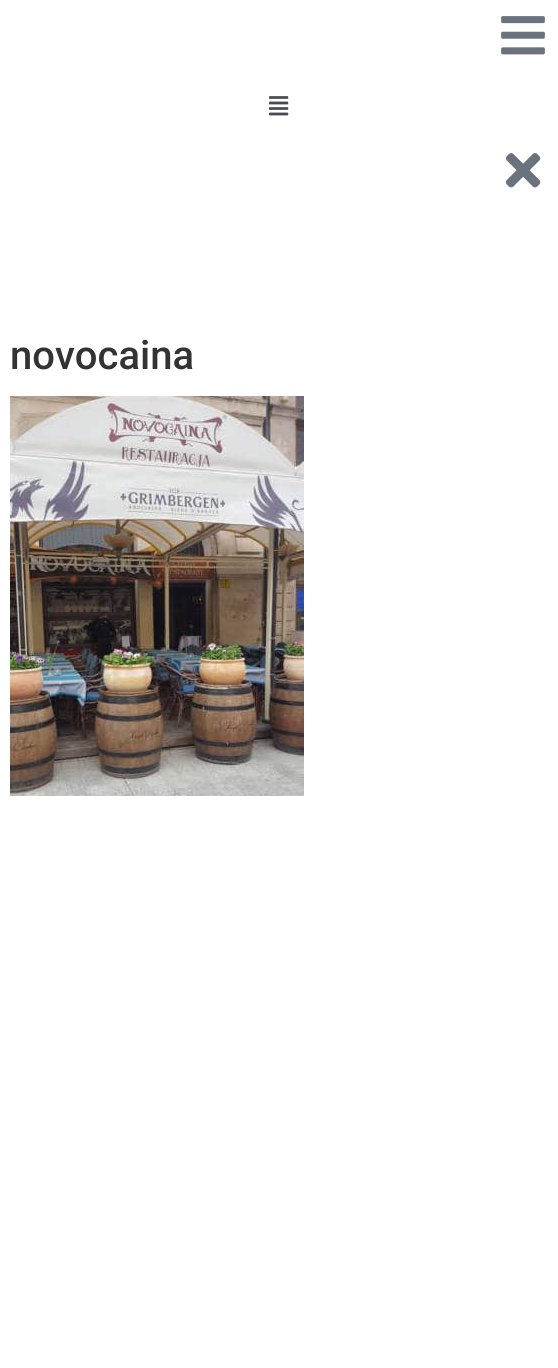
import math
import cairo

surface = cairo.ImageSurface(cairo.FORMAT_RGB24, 558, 1368)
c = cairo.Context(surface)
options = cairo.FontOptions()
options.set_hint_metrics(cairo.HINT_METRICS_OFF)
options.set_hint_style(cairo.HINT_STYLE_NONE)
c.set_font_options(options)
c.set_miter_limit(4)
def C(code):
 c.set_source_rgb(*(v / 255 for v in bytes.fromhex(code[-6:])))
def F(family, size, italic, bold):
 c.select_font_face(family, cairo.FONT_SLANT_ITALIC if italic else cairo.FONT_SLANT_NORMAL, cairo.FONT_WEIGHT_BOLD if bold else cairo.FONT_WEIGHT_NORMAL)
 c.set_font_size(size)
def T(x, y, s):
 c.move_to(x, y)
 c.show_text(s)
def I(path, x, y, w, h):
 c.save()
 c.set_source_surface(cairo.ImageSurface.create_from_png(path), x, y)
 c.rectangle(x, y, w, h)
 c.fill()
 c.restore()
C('ffffff')
c.paint()
I('1.png',501,16,44,39)
I('2.png',269,96,20,20)
I('3.png',505,153,36,35)
F('Roboto Medium',40,0,0)
C('333333')
T(10,369,'novocaina')
I('4.png',10,396,294,400)
surface.write_to_png('o.png')
